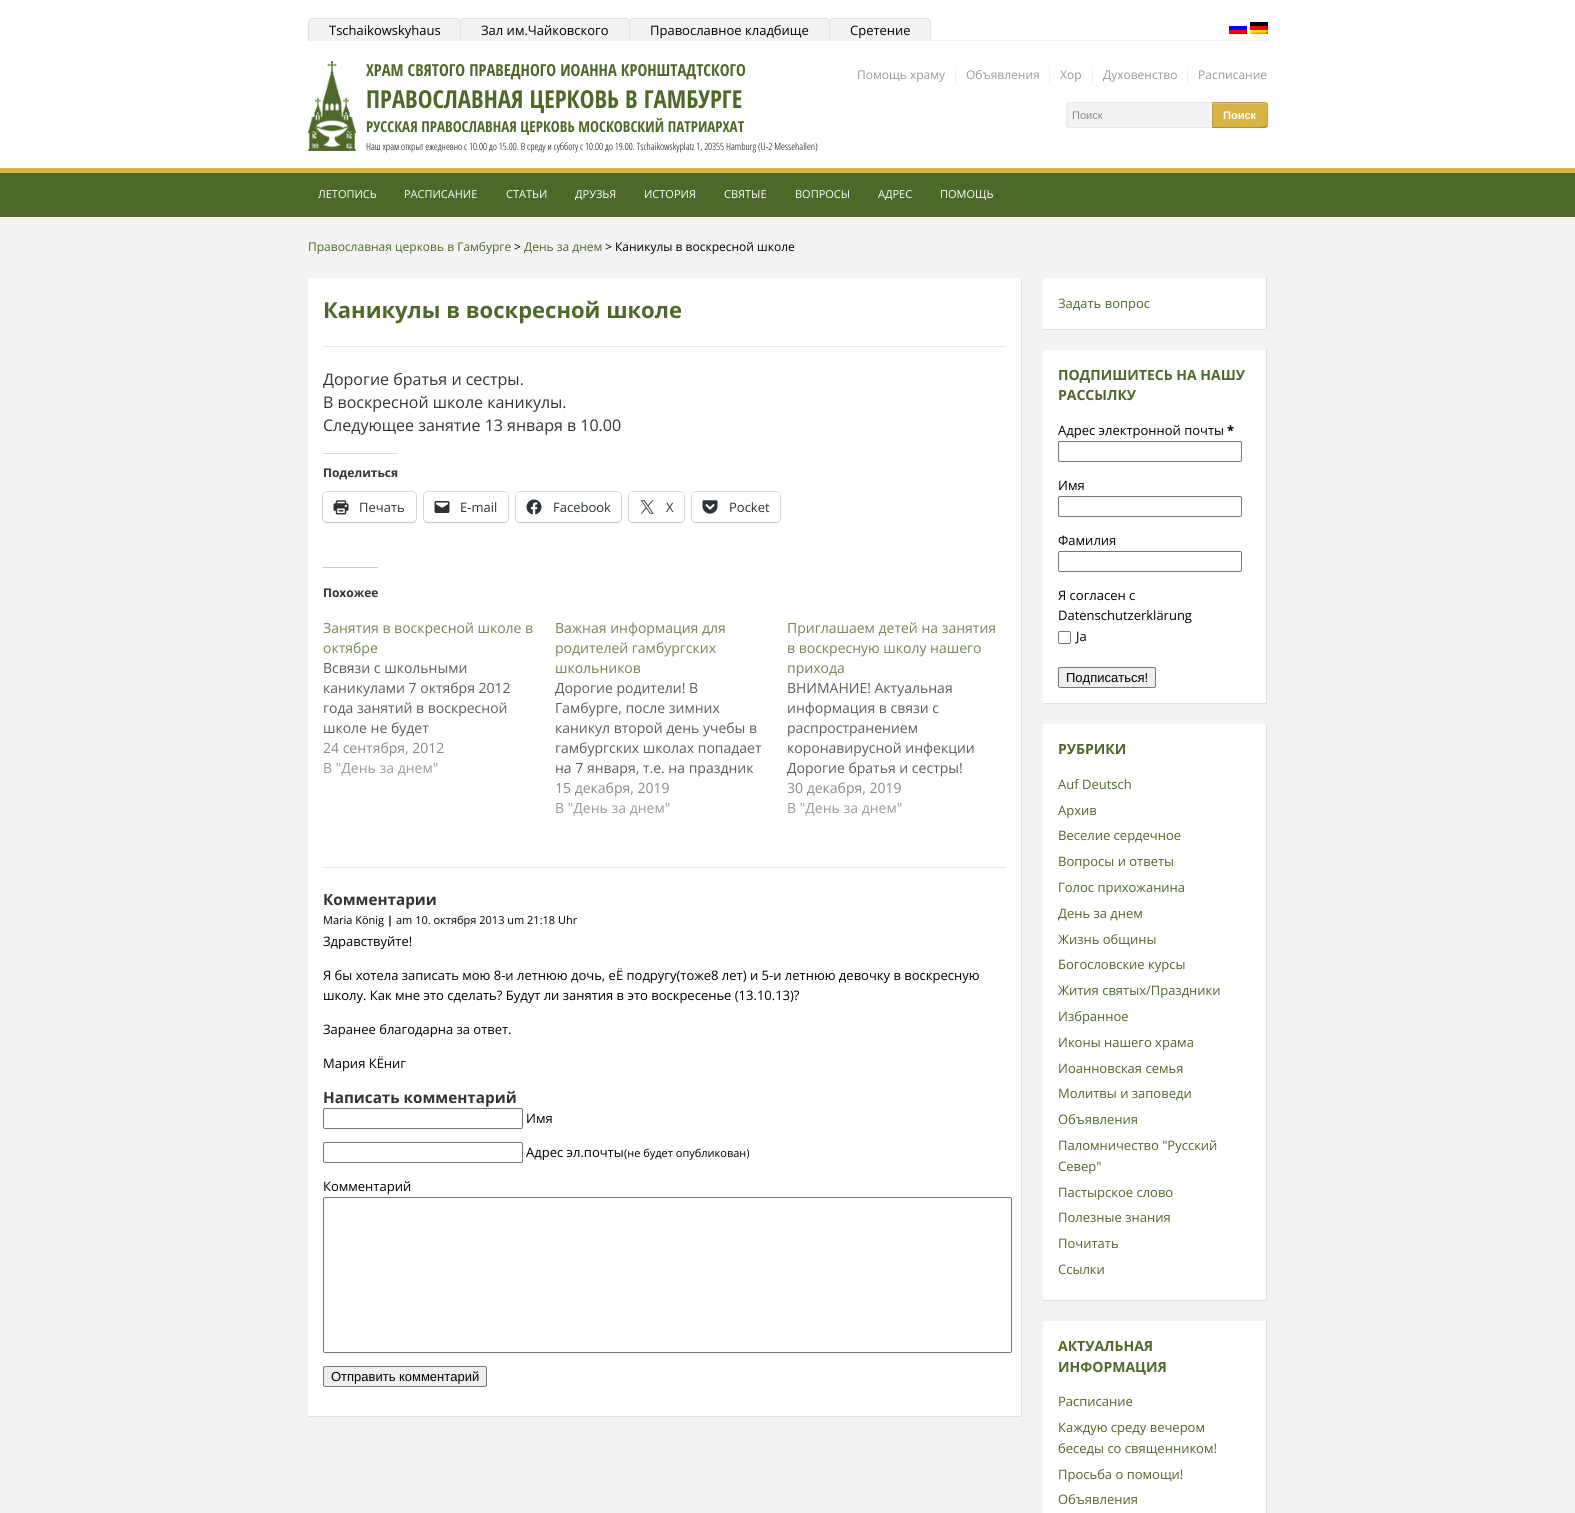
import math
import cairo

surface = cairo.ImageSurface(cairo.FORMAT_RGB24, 1575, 1513)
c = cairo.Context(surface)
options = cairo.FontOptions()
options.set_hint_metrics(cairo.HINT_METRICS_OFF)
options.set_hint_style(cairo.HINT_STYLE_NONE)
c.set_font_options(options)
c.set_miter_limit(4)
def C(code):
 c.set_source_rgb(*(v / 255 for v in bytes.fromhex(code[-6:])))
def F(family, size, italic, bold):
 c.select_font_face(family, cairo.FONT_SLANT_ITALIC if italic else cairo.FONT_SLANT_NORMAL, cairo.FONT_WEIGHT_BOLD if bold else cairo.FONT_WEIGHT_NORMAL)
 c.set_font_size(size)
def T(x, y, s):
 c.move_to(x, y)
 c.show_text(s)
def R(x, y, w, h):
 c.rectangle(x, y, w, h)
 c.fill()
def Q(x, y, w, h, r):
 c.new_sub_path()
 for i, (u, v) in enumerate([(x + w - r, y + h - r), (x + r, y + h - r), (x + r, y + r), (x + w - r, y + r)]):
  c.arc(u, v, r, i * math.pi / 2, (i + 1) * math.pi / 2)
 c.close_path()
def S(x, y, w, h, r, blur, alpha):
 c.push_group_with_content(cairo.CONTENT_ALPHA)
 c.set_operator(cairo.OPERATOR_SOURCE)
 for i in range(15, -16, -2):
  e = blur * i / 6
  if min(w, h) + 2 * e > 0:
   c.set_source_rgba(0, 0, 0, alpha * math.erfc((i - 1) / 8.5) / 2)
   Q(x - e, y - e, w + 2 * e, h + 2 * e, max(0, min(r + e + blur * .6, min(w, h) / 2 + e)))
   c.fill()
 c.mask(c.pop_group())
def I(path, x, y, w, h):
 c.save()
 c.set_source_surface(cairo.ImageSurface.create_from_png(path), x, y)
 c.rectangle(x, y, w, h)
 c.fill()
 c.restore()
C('f3f3f3')
c.paint()
C('ffffff')
R(0,0,1575,168)
C('f3f3f3')
R(931,40,337,1)
c.new_path()
c.move_to(313,18)
c.line_to(456,18)
c.curve_to(459,18,461,20,461,23)
c.line_to(461,41)
c.line_to(308,41)
c.line_to(308,23)
c.curve_to(308,20,310,18,313,18)
c.close_path()
c.fill()
C('e4e4e4')
c.set_fill_rule(cairo.FILL_RULE_EVEN_ODD)
c.new_path()
c.move_to(313,18)
c.line_to(456,18)
c.curve_to(459,18,461,20,461,23)
c.line_to(461,41)
c.line_to(308,41)
c.line_to(308,23)
c.curve_to(308,20,310,18,313,18)
c.close_path()
c.move_to(313,19)
c.line_to(456,19)
c.curve_to(458,19,460,21,460,23)
c.line_to(460,41)
c.line_to(309,41)
c.line_to(309,23)
c.curve_to(309,21,311,19,313,19)
c.close_path()
c.fill()
F('Open Sans',13,0,0)
C('000000')
T(329,35,'Tschaikowskyhaus')
C('f3f3f3')
c.new_path()
c.move_to(465,18)
c.line_to(625,18)
c.curve_to(628,18,630,20,630,23)
c.line_to(630,41)
c.line_to(460,41)
c.line_to(460,23)
c.curve_to(460,20,462,18,465,18)
c.close_path()
c.fill()
C('e4e4e4')
c.new_path()
c.move_to(465,18)
c.line_to(625,18)
c.curve_to(628,18,630,20,630,23)
c.line_to(630,41)
c.line_to(460,41)
c.line_to(460,23)
c.curve_to(460,20,462,18,465,18)
c.close_path()
c.move_to(465,19)
c.line_to(625,19)
c.curve_to(627,19,629,21,629,23)
c.line_to(629,41)
c.line_to(461,41)
c.line_to(461,23)
c.curve_to(461,21,463,19,465,19)
c.close_path()
c.fill()
C('000000')
T(481,35,'Зал им.Чайковского')
C('f3f3f3')
c.new_path()
c.move_to(634,18)
c.line_to(825,18)
c.curve_to(828,18,830,20,830,23)
c.line_to(830,41)
c.line_to(629,41)
c.line_to(629,23)
c.curve_to(629,20,631,18,634,18)
c.close_path()
c.fill()
C('e4e4e4')
c.new_path()
c.move_to(634,18)
c.line_to(825,18)
c.curve_to(828,18,830,20,830,23)
c.line_to(830,41)
c.line_to(629,41)
c.line_to(629,23)
c.curve_to(629,20,631,18,634,18)
c.close_path()
c.move_to(634,19)
c.line_to(825,19)
c.curve_to(827,19,829,21,829,23)
c.line_to(829,41)
c.line_to(630,41)
c.line_to(630,23)
c.curve_to(630,21,632,19,634,19)
c.close_path()
c.fill()
C('000000')
T(650,35,'Православное кладбище')
C('f3f3f3')
c.new_path()
c.move_to(834,18)
c.line_to(926,18)
c.curve_to(929,18,931,20,931,23)
c.line_to(931,41)
c.line_to(829,41)
c.line_to(829,23)
c.curve_to(829,20,831,18,834,18)
c.close_path()
c.fill()
C('e4e4e4')
c.new_path()
c.move_to(834,18)
c.line_to(926,18)
c.curve_to(929,18,931,20,931,23)
c.line_to(931,41)
c.line_to(829,41)
c.line_to(829,23)
c.curve_to(829,20,831,18,834,18)
c.close_path()
c.move_to(834,19)
c.line_to(926,19)
c.curve_to(928,19,930,21,930,23)
c.line_to(930,41)
c.line_to(830,41)
c.line_to(830,23)
c.curve_to(830,21,832,19,834,19)
c.close_path()
c.fill()
C('000000')
T(850,35,'Сретение')
I('1.png',1229,24,18,10)
I('2.png',1250,22,18,12)
I('3.png',308,61,48,90)
F('Open Sans Condensed',16.5,0,1)
C('4e682a')
T(366,76,'ХРАМ СВЯТОГО ПРАВЕДНОГО ИОАННА КРОНШТАДТСКОГО')
F('Open Sans Condensed',24.75,0,1)
T(366,108,'ПРАВОСЛАВНАЯ ЦЕРКОВЬ В ГАМБУРГЕ')
F('Open Sans Condensed',15,0,1)
T(366,132,'РУССКАЯ ПРАВОСЛАВНАЯ ЦЕРКОВЬ МОСКОВСКИЙ ПАТРИАРХАТ')
F('Open Sans Condensed Light',10,0,0)
C('000000')
T(366,150,'Наш храм открыт ежедневно с 10.00 до 15.00. В среду и субботу с 10.00 до 19.00. Tschaikowskyplatz 1, 20355 Hamburg (U-2 Messehallen)')
F('Open Sans',12,0,0)
C('999999')
T(857,79,'Помощь храму')
C('f1f1f1')
R(955,66,1,18)
C('999999')
T(966,79,'Объявления')
C('f1f1f1')
R(1049,66,1,18)
C('999999')
T(1060,79,'Хор')
C('f1f1f1')
R(1092,66,1,18)
C('999999')
T(1103,79,'Духовенство')
C('f1f1f1')
R(1187,66,1,18)
C('999999')
T(1198,79,'Расписание')
C('f3f3f3')
Q(1066,102,146,26,2)
c.fill()
C('e9e9e9')
R(1067,102,144,1)
R(1067,127,144,1)
R(1066,103,1,24)
F('Liberation Sans',11,0,0)
C('888888')
T(1072,119,'Поиск')
C('000000')
S(1212,103,56,26,3,1,.05)
C('d8b446')
c.new_path()
c.move_to(1212,102)
c.line_to(1265,102)
c.curve_to(1266.5,102,1268,103.5,1268,105)
c.line_to(1268,125)
c.curve_to(1268,126.5,1266.5,128,1265,128)
c.line_to(1212,128)
c.close_path()
c.fill()
c.save()
c.set_fill_rule(cairo.FILL_RULE_WINDING)
c.new_path()
c.move_to(1212,102)
c.line_to(1265,102)
c.curve_to(1266.5,102,1268,103.5,1268,105)
c.line_to(1268,125)
c.curve_to(1268,126.5,1266.5,128,1265,128)
c.line_to(1212,128)
c.close_path()
c.clip()
R(1212,103,56,24)
c.restore()
C('e0c36b')
c.set_fill_rule(cairo.FILL_RULE_WINDING)
c.new_path()
c.move_to(1213,104)
c.line_to(1265,104)
c.curve_to(1266,104,1267,105,1267,106)
c.line_to(1267,105)
c.curve_to(1267,104,1266,103,1265,103)
c.line_to(1213,103)
c.close_path()
c.fill()
c.set_source_rgba(0,0,0,0.1)
c.new_path()
c.move_to(1212,102)
c.line_to(1213,103)
c.curve_to(1219,103,1265,102,1266,104)
c.line_to(1267,103)
c.line_to(1265,102)
c.close_path()
c.fill()
c.new_path()
c.move_to(1268,125)
c.line_to(1268,105)
c.curve_to(1268,104,1268,103,1267,103)
c.line_to(1266.5,103.5)
c.curve_to(1267,104,1267,104.5,1267,105)
c.line_to(1267,125)
c.curve_to(1267,125.5,1267,126,1266.5,126.5)
c.line_to(1267,127)
c.curve_to(1268,127,1268,126,1268,125)
c.close_path()
c.fill()
c.set_source_rgba(0,0,0,0.25)
c.new_path()
c.move_to(1265,128)
c.line_to(1267,127)
c.line_to(1266,126)
c.curve_to(1265,128,1219,127,1213,127)
c.line_to(1212,128)
c.close_path()
c.fill()
c.set_source_rgba(0,0,0,0.1)
c.new_path()
c.move_to(1212,102)
c.line_to(1212,128)
c.line_to(1213,127)
c.line_to(1213,103)
c.close_path()
c.fill()
F('Liberation Sans',11,0,1)
C('ffffff')
T(1223,119,'Поиск')
C('4e682a')
R(0,173,1575,44)
C('d8b446')
R(0,168,1575,5)
F('Open Sans',11,0,0)
C('ffffff')
T(318,198,'ЛЕТОПИСЬ')
T(404,198,'РАСПИСАНИЕ')
T(506,198,'СТАТЬИ')
T(575,198,'ДРУЗЬЯ')
T(644,198,'ИСТОРИЯ')
T(724,198,'СВЯТЫЕ')
T(795,198,'ВОПРОСЫ')
T(878,198,'АДРЕС')
T(940,198,'ПОМОЩЬ')
F('Open Sans',12,0,0)
C('4e682a')
T(308,251,'Православная церковь в Гамбурге')
C('000000')
T(514,251,'>')
C('4e682a')
T(524,251,'День за днем')
C('000000')
T(605,251,'> Каникулы в воскресной школе')
C('ffffff')
R(308,278,713,1138)
C('e1e1e1')
R(1021,278,1,1139)
R(308,1416,714,1)
F('Open Sans',22,0,1)
C('4e682a')
T(323,318,'Каникулы в воскресной школе')
C('e7e7e7')
R(323,346,683,1)
F('Open Sans',16,0,0)
C('333333')
T(323,385,'Дорогие братья и сестры.')
T(323,408,'В воскресной школе каникулы.')
T(323,431,'Следующее занятие 13 января в 10.00')
C('dcdcde')
R(323,453,75,1)
F('Open Sans',12,0,1)
C('333333')
T(323,477,'Поделиться')
Q(322.5,491.5,94,31,4.5)
C('e0e0e0')
c.set_line_width(1)
c.stroke()
C('000000')
S(323,493,93,30,4,1,.12)
C('ffffff')
Q(323,492,93,30,4)
c.fill()
I('4.png',333,500,16,15)
F('Open Sans',13,0,0)
C('2c3338')
T(359,512,'Печать')
Q(423.5,491.5,85,31,4.5)
C('e0e0e0')
c.stroke()
C('000000')
S(424,493,84,30,4,1,.12)
C('ffffff')
Q(424,492,84,30,4)
c.fill()
I('5.png',434,501,16,12)
C('2c3338')
T(460,512,'E-mail')
Q(515.5,491.5,106,31,4.5)
C('e0e0e0')
c.stroke()
C('000000')
S(516,493,105,30,4,1,.12)
C('ffffff')
Q(516,492,105,30,4)
c.fill()
I('6.png',526,499,16,16)
C('2c3338')
T(553,512,'Facebook')
Q(628.5,491.5,56,31,4.5)
C('e0e0e0')
c.stroke()
C('000000')
S(629,493,55,30,4,1,.12)
C('ffffff')
Q(629,492,55,30,4)
c.fill()
I('7.png',640,500,14,14)
C('2c3338')
T(666,512,'X')
Q(691.5,491.5,89,31,4.5)
C('e0e0e0')
c.stroke()
C('000000')
S(692,493,88,30,4,1,.12)
C('ffffff')
Q(692,492,88,30,4)
c.fill()
I('8.png',702,500,16,14)
C('2c3338')
T(729,512,'Pocket')
C('cccccc')
R(323,567,55,1)
F('Open Sans',12,0,1)
C('333333')
T(323,597,'Похожее')
F('Open Sans',14,0,0)
C('718655')
T(323,633,'Занятия в воскресной школе в')
T(323,653,'октябре')
C('5c5c5c')
T(323,673,'Всвязи с школьными')
T(323,693,'каникулами 7 октября 2012')
T(323,713,'года занятий в воскресной')
T(323,733,'школе не будет')
C('888888')
T(323,753,'24 сентября, 2012')
C('999999')
T(323,773,'В "День за днем"')
C('718655')
T(555,633,'Важная информация для')
T(555,653,'родителей гамбургских')
T(555,673,'школьников')
c.save()
c.rectangle(555,678,212,100)
c.clip()
C('5c5c5c')
T(555,693,'Дорогие родители! В')
c.restore()
C('5c5c5c')
T(555,713,'Гамбурге, после зимних')
T(555,733,'каникул второй день учебы в')
T(555,753,'гамбургских школах попадает')
T(555,773,'на 7 января, т.е. на праздник')
C('888888')
T(555,793,'15 декабря, 2019')
C('999999')
T(555,813,'В "День за днем"')
C('718655')
T(787,633,'Приглашаем детей на занятия')
T(787,653,'в воскресную школу нашего')
T(787,673,'прихода')
C('5c5c5c')
T(787,693,'ВНИМАНИЕ! Актуальная')
T(787,713,'информация в связи с')
T(787,733,'распространением')
T(787,753,'коронавирусной инфекции')
T(787,773,'Дорогие братья и сестры!')
C('888888')
T(787,793,'30 декабря, 2019')
C('999999')
T(787,813,'В "День за днем"')
C('e7e7e7')
R(323,867,683,1)
F('Open Sans',15.25,0,1)
C('333333')
T(323,905,'Комментарии')
F('Open Sans',11,0,0)
C('000000')
T(323,924,'Maria König')
F('Open Sans',11,0,1)
T(387,924,'|')
F('Open Sans',11,0,0)
T(396,924,'am 10. октября 2013 um 21:18 Uhr')
F('Open Sans',13,0,0)
T(323,946,'Здравствуйте!')
T(323,980,'Я бы хотела записать мою 8-и летнюю дочь, еЁ подругу(тоже8 лет) и 5-и летнюю девочку в воскресную')
T(323,1000,'школу. Как мне это сделать? Будут ли занятия в это воскресенье (13.10.13)?')
T(323,1034,'Заранее благодарна за ответ.')
T(323,1068,'Мария КЁниг')
F('Open Sans',15.25,0,1)
C('333333')
T(323,1103,'Написать комментарий')
Q(323.5,1108.5,199,20,1.5)
C('767676')
c.stroke()
F('Open Sans',13,0,0)
C('000000')
T(526,1123,'Имя')
Q(323.5,1142.5,199,20,1.5)
C('767676')
c.stroke()
C('000000')
T(526,1157,'Адрес эл.почты')
F('Open Sans',11,0,0)
T(624,1157,'(не будет опубликован)')
F('Open Sans',13,0,0)
T(323,1191,'Комментарий')
Q(323.5,1197.5,688,155,1.5)
C('767676')
c.stroke()
C('efefef')
Q(323.5,1366.5,163,20,1.5)
c.fill_preserve()
C('767676')
c.stroke()
F('Liberation Sans',13,0,0)
C('000000')
T(331,1381,'Отправить комментарий')
C('ffffff')
R(1043,278,223,51)
C('e1e1e1')
R(1266,278,1,52)
R(1043,329,224,1)
F('Open Sans',13,0,0)
C('4e682a')
T(1058,308,'Задать вопрос')
C('ffffff')
R(1043,350,223,353)
C('e1e1e1')
R(1266,350,1,354)
R(1043,703,224,1)
F('Open Sans',14,0,1)
C('4e682a')
T(1058,380,'ПОДПИШИТЕСЬ НА НАШУ')
T(1058,400,'РАССЫЛКУ')
F('Open Sans',13,0,0)
C('000000')
T(1058,435,'Адрес электронной почты')
F('Open Sans',13,0,1)
T(1227,435,'*')
Q(1058.5,441.5,183,20,1.5)
C('767676')
c.stroke()
F('Open Sans',13,0,0)
C('000000')
T(1058,490,'Имя')
Q(1058.5,496.5,183,20,1.5)
C('767676')
c.stroke()
C('000000')
T(1058,545,'Фамилия')
Q(1058.5,551.5,183,20,1.5)
C('767676')
c.stroke()
C('000000')
T(1058,600,'Я согласен с')
T(1058,620,'Datenschutzerklärung')
Q(1058.5,631.5,12,12,1.5)
C('767676')
c.stroke()
C('000000')
T(1076,641,'Ja')
C('efefef')
Q(1058.5,667.5,97,20,1.5)
c.fill_preserve()
C('767676')
c.stroke()
F('Liberation Sans',13,0,0)
C('000000')
T(1066,682,'Подписаться!')
C('ffffff')
R(1043,724,223,576)
C('e1e1e1')
R(1266,724,1,577)
R(1043,1300,224,1)
F('Open Sans',14,0,1)
C('4e682a')
T(1058,754,'РУБРИКИ')
F('Open Sans',13,0,0)
T(1058,789,'Auf Deutsch')
T(1058,815,'Архив')
T(1058,840,'Веселие сердечное')
T(1058,866,'Вопросы и ответы')
T(1058,892,'Голос прихожанина')
T(1058,918,'День за днем')
T(1058,944,'Жизнь общины')
T(1058,969,'Богословские курсы')
T(1058,995,'Жития святых/Праздники')
T(1058,1021,'Избранное')
T(1058,1047,'Иконы нашего храма')
T(1058,1073,'Иоанновская семья')
T(1058,1098,'Молитвы и заповеди')
T(1058,1124,'Объявления')
T(1058,1150,'Паломничество "Русский')
T(1058,1171,'Север"')
T(1058,1197,'Пастырское слово')
T(1058,1222,'Полезные знания')
T(1058,1248,'Почитать')
T(1058,1274,'Ссылки')
C('ffffff')
R(1043,1321,223,192)
C('e1e1e1')
R(1266,1321,1,192)
F('Open Sans',14,0,1)
C('4e682a')
T(1058,1351,'АКТУАЛЬНАЯ')
T(1058,1372,'ИНФОРМАЦИЯ')
F('Open Sans',13,0,0)
T(1058,1406,'Расписание')
T(1058,1432,'Каждую среду вечером')
T(1058,1453,'беседы со священником!')
T(1058,1479,'Просьба о помощи!')
T(1058,1504,'Объявления')
surface.write_to_png('o.png')
